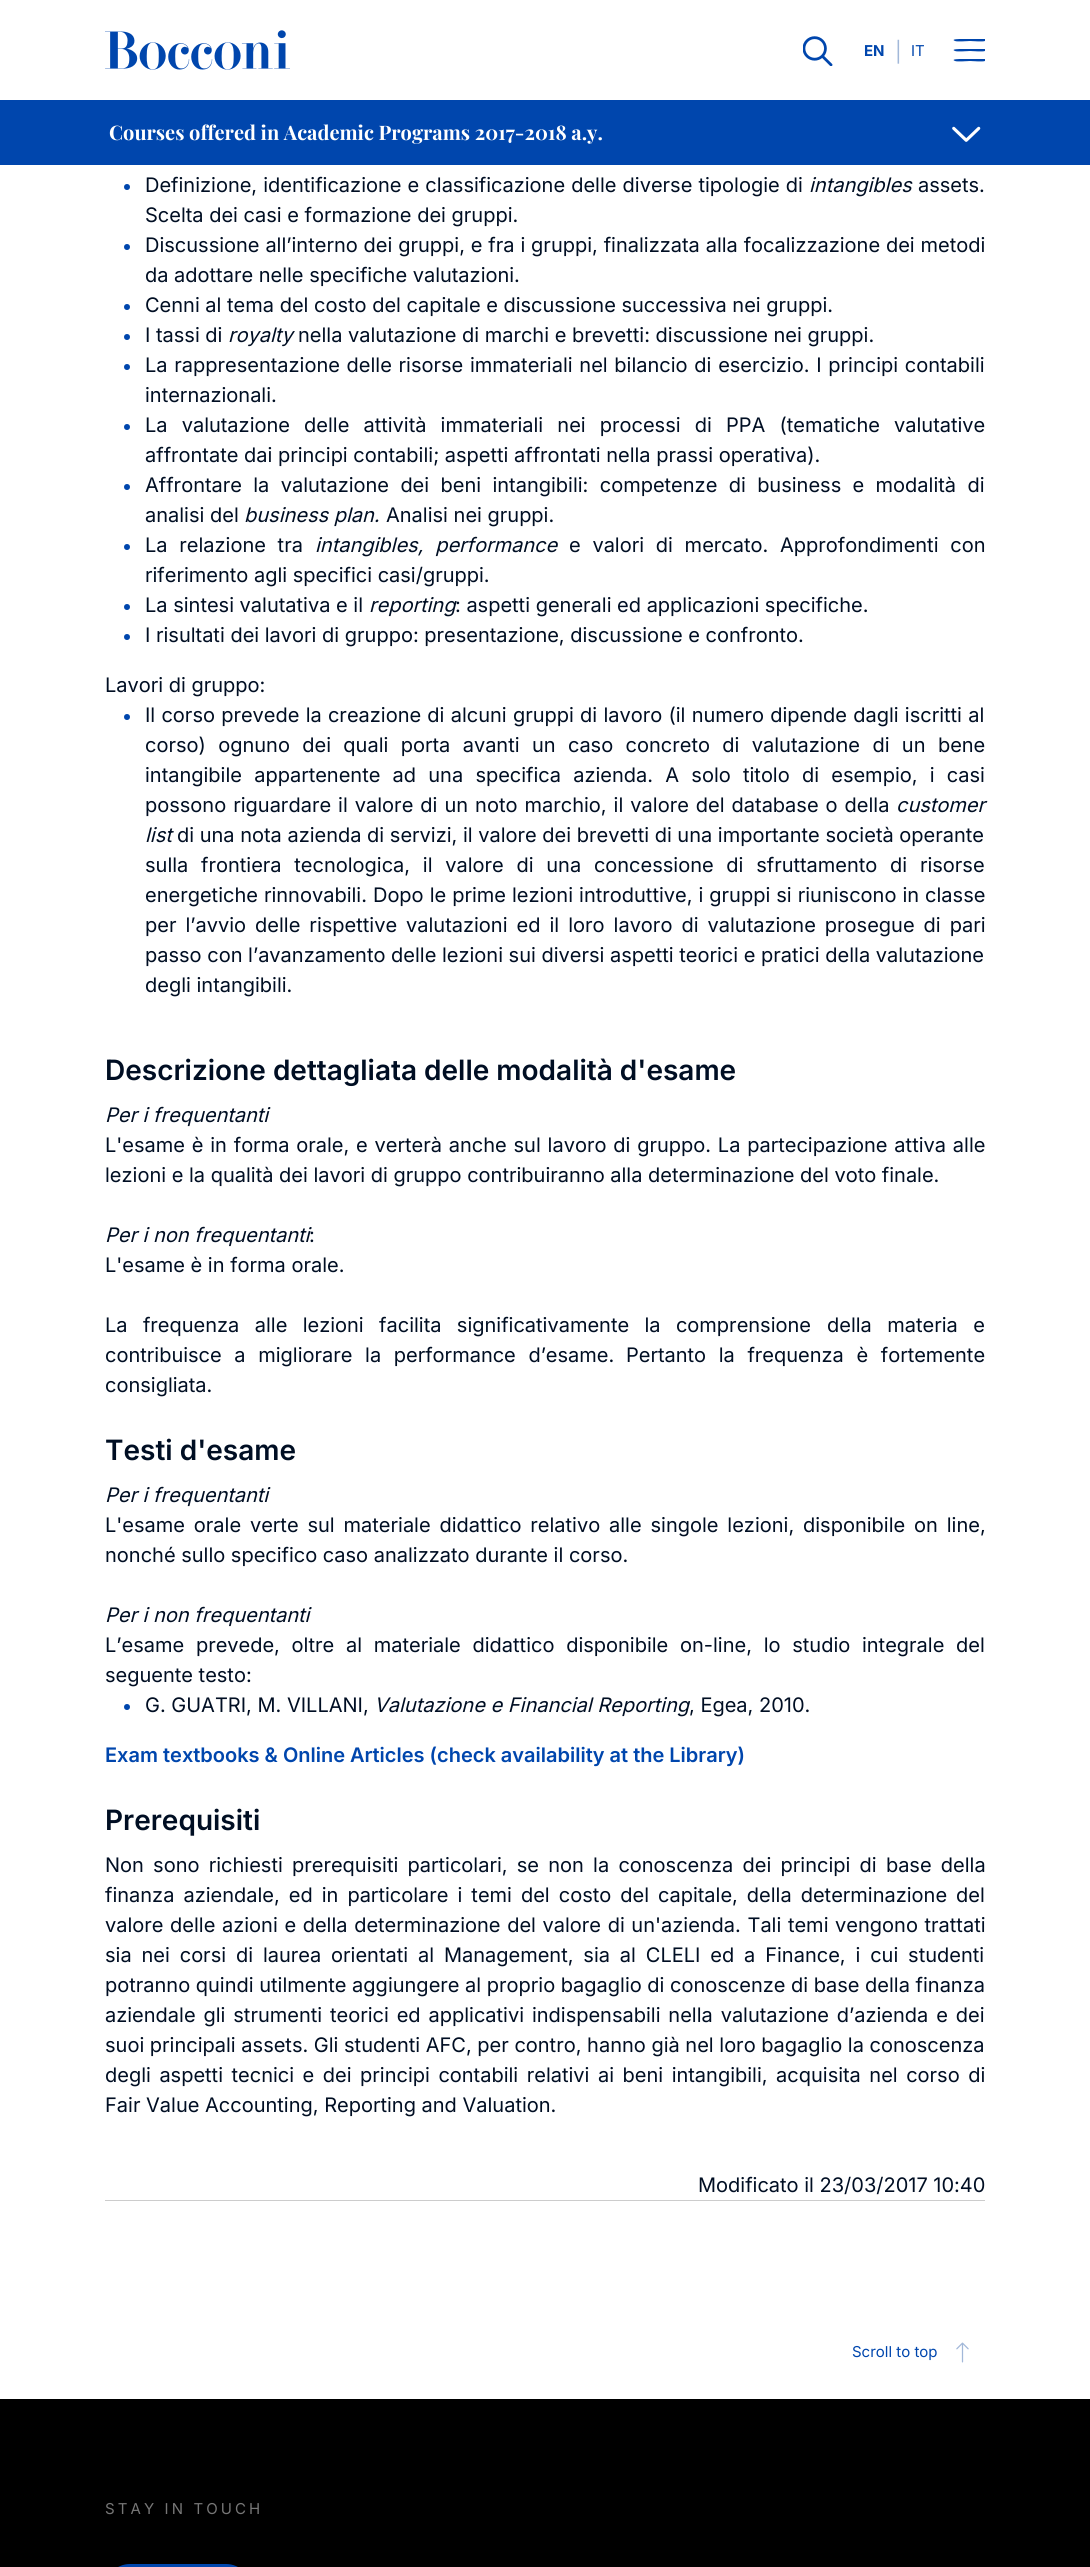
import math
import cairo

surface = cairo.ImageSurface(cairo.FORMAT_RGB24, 1090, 2567)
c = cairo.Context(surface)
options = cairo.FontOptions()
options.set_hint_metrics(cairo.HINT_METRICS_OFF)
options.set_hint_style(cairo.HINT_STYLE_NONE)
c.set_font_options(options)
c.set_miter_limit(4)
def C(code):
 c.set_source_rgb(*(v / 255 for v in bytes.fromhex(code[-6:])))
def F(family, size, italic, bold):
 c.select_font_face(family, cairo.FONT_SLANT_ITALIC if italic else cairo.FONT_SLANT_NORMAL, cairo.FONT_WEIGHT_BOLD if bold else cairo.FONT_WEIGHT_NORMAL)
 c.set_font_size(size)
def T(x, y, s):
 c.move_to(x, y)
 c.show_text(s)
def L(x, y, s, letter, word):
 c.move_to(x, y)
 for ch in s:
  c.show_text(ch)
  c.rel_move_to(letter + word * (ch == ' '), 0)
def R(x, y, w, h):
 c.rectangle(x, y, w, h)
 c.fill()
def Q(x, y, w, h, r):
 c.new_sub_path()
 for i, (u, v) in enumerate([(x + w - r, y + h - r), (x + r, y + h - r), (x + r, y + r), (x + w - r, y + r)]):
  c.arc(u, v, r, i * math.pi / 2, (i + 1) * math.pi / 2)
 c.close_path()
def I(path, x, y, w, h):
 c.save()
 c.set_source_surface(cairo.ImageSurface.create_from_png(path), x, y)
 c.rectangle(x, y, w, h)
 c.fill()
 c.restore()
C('ffffff')
c.paint()
I('1.png',105,30,185,40)
I('2.png',803,36,30,30)
F('Inter',15,0,1)
C('0046ad')
T(864,56,'EN')
F('Inter',20,0,0)
C('a2b8d9')
T(895,59,'|')
F('Inter',15,0,0)
C('0046ad')
T(911,56,'IT')
c.new_path()
c.move_to(961,39)
c.line_to(981.5,39)
c.line_to(985,39)
c.line_to(985,41)
c.curve_to(982.5,42,972.5,41,970,41)
c.curve_to(967.5,41,957.5,42,955,41)
c.curve_to(950,39,960,39,961,39)
c.close_path()
c.move_to(961,49)
c.line_to(981.5,49)
c.line_to(985,49)
c.line_to(985,51)
c.curve_to(982.5,52,972.5,51,970,51)
c.curve_to(967.5,51,957.5,52,955,51)
c.curve_to(950,49,960,49,961,49)
c.close_path()
c.move_to(961,59)
c.line_to(981.5,59)
c.line_to(985,59)
c.line_to(985,61)
c.curve_to(982.5,62,972.5,61,970,61)
c.curve_to(967.5,61,957.5,62,955,61)
c.curve_to(950,59,960,59,961,59)
c.close_path()
c.fill()
R(0,100,1090,65)
F('Playfair Display',20,0,1)
C('ffffff')
T(109,140,'Courses offered in Academic Programs 2017-2018 a.y.')
I('3.png',952,126,29,16)
C('0046ad')
c.arc(127,187,3,0,2 * math.pi)
c.fill()
F('Inter',20,0,0)
C('000e23')
L(145,192,'Definizione, identificazione e classificazione delle diverse tipologie di',0,.5)
F('Inter',20,1,0)
T(809,192,'intangibles')
F('Inter',20,0,0)
T(918,192,'assets.')
T(145,222,'Scelta dei casi e formazione dei gruppi.')
C('0046ad')
c.new_path()
c.arc(127,247,3,0,2 * math.pi)
c.fill()
C('000e23')
L(145,252,'Discussione all’interno dei gruppi, e fra i gruppi, finalizzata alla focalizzazione dei metodi',0,.25)
T(145,282,'da adottare nelle specifiche valutazioni.')
C('0046ad')
c.new_path()
c.arc(127,307,3,0,2 * math.pi)
c.fill()
C('000e23')
T(145,312,'Cenni al tema del costo del capitale e discussione successiva nei gruppi.')
C('0046ad')
c.new_path()
c.arc(127,337,3,0,2 * math.pi)
c.fill()
C('000e23')
T(145,342,'I tassi di')
F('Inter',20,1,0)
T(228,342,'royalty')
F('Inter',20,0,0)
T(298,342,'nella valutazione di marchi e brevetti: discussione nei gruppi.')
C('0046ad')
c.new_path()
c.arc(127,367,3,0,2 * math.pi)
c.fill()
C('000e23')
L(145,372,'La rappresentazione delle risorse immateriali nel bilancio di esercizio. I principi contabili',0,1.1)
T(145,402,'internazionali.')
C('0046ad')
c.new_path()
c.arc(127,427,3,0,2 * math.pi)
c.fill()
C('000e23')
L(145,432,'La valutazione delle attività immateriali nei processi di PPA (tematiche valutative',0,8.5)
T(145,462,'affrontate dai principi contabili; aspetti affrontati nella prassi operativa).')
C('0046ad')
c.new_path()
c.arc(127,487,3,0,2 * math.pi)
c.fill()
C('000e23')
L(145,492,'Affrontare la valutazione dei beni intangibili: competenze di business e modalità di',0,5.75)
T(145,522,'analisi del')
F('Inter',20,1,0)
T(244,522,'business plan.')
F('Inter',20,0,0)
T(386,522,'Analisi nei gruppi.')
C('0046ad')
c.new_path()
c.arc(127,547,3,0,2 * math.pi)
c.fill()
C('000e23')
L(145,552,'La relazione tra',0,6.1)
F('Inter',20,1,0)
L(315,552,'intangibles, performance',0,6.1)
F('Inter',20,0,0)
L(569,552,'e valori di mercato. Approfondimenti con',0,6.1)
T(145,582,'riferimento agli specifici casi/gruppi.')
C('0046ad')
c.new_path()
c.arc(127,607,3,0,2 * math.pi)
c.fill()
C('000e23')
T(145,612,'La sintesi valutativa e il')
F('Inter',20,1,0)
T(369,612,'reporting')
F('Inter',20,0,0)
T(455,612,': aspetti generali ed applicazioni specifiche.')
C('0046ad')
c.new_path()
c.arc(127,637,3,0,2 * math.pi)
c.fill()
C('000e23')
T(145,642,'I risultati dei lavori di gruppo: presentazione, discussione e confronto.')
T(105,692,'Lavori di gruppo:')
C('0046ad')
c.new_path()
c.arc(127,717,3,0,2 * math.pi)
c.fill()
C('000e23')
L(145,722,'Il corso prevede la creazione di alcuni gruppi di lavoro (il numero dipende dagli iscritti al',0,.6)
L(145,752,'corso) ognuno dei quali porta avanti un caso concreto di valutazione di un bene',0,6.75)
L(145,782,'intangibile appartenente ad una specifica azienda. A solo titolo di esempio, i casi',0,6.6)
L(145,812,'possono riguardare il valore di un noto marchio, il valore del database o della',0,1.4)
F('Inter',20,1,0)
T(896,812,'customer')
T(145,842,'list')
F('Inter',20,0,0)
T(177,842,'di una nota azienda di servizi, il valore dei brevetti di una importante società operante')
L(145,872,'sulla frontiera tecnologica, il valore di una concessione di sfruttamento di risorse',0,7.1)
L(145,902,'energetiche rinnovabili. Dopo le prime lezioni introduttive, i gruppi si riuniscono in classe',0,.4)
L(145,932,'per l’avvio delle rispettive valutazioni ed il loro lavoro di valutazione prosegue di pari',0,3.4)
T(145,962,'passo con l’avanzamento delle lezioni sui diversi aspetti teorici e pratici della valutazione')
T(145,992,'degli intangibili.')
F('Inter SemiBold',28,0,0)
T(105,1080,'Descrizione dettagliata delle modalità d\'esame')
F('Inter',20,1,0)
T(105,1122,'Per i frequentanti')
F('Inter',20,0,0)
L(105,1152,'L\'esame è in forma orale, e verterà anche sul lavoro di gruppo. La partecipazione attiva alle',0,1.2)
T(105,1182,'lezioni e la qualità dei lavori di gruppo contribuiranno alla determinazione del voto finale.')
F('Inter',20,1,0)
T(105,1242,'Per i non frequentanti')
F('Inter',20,0,0)
T(309,1242,':')
T(105,1272,'L\'esame è in forma orale.')
L(105,1332,'La frequenza alle lezioni facilita significativamente la comprensione',0,9.75)
L(827,1332,'della materia e',0,9.75)
L(105,1362,'contribuisce a migliorare la performance d’esame.',0,7)
L(626,1362,'Pertanto la frequenza è fortemente',0,7)
T(105,1392,'consigliata.')
F('Inter SemiBold',28,0,0)
T(105,1460,'Testi d\'esame')
F('Inter',20,1,0)
T(105,1502,'Per i frequentanti')
F('Inter',20,0,0)
L(105,1532,'L\'esame orale verte sul materiale didattico relativo alle singole lezioni, disponibile on line,',0,3.25)
T(105,1562,'nonché sullo specifico caso analizzato durante il corso.')
F('Inter',20,1,0)
T(105,1622,'Per i non frequentanti')
F('Inter',20,0,0)
L(105,1652,'L’esame prevede, oltre al materiale didattico disponibile on-line, lo studio integrale del',0,6.1)
T(105,1682,'seguente testo:')
C('0046ad')
c.new_path()
c.arc(127,1707,3,0,2 * math.pi)
c.fill()
C('000e23')
T(145,1712,'G. GUATRI, M. VILLANI,')
F('Inter',20,1,0)
T(374,1712,'Valutazione e Financial Reporting')
F('Inter',20,0,0)
T(689,1712,', Egea, 2010.')
F('Inter SemiBold',20,0,0)
C('0046ad')
T(105,1762,'Exam textbooks & Online Articles (check availability at the Library)')
F('Inter SemiBold',28,0,0)
C('000e23')
T(105,1830,'Prerequisiti')
F('Inter',20,0,0)
L(105,1872,'Non sono richiesti prerequisiti particolari, se non la conoscenza dei principi di base della',0,3.6)
L(105,1902,'finanza aziendale, ed in particolare i temi del costo del capitale, della determinazione del',0,3.4)
L(105,1932,'valore delle azioni e della determinazione del valore di un\'azienda. Tali temi vengono trattati',0,1)
L(105,1962,'sia nei corsi di laurea orientati al Management, sia al CLELI ed a Finance, i cui studenti',0,4.25)
T(105,1992,'potranno quindi utilmente aggiungere al proprio bagaglio di conoscenze di base della finanza')
L(105,2022,'aziendale gli strumenti teorici ed applicativi indispensabili nella valutazione d’azienda e dei',0,2.25)
T(105,2052,'suoi principali assets. Gli studenti AFC, per contro, hanno già nel loro bagaglio la conoscenza')
L(105,2082,'degli aspetti tecnici e dei principi contabili relativi ai beni intangibili, acquisita nel corso di',0,2.9)
T(105,2112,'Fair Value Accounting, Reporting and Valuation.')
C('cccccc')
R(105,2200,880,1)
C('000e23')
T(698,2192,'Modificato il 23/03/2017 10:40')
F('Inter',15,0,0)
C('0046ad')
T(852,2357,'Scroll to top')
I('4.png',956,2342,13,21)
C('000000')
R(0,2399,1090,168)
C('767676')
L(105,2514,'STAY IN TOUCH',3.1,0)
C('0046ad')
Q(105,2564,146,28,25)
c.fill()
surface.write_to_png('o.png')
